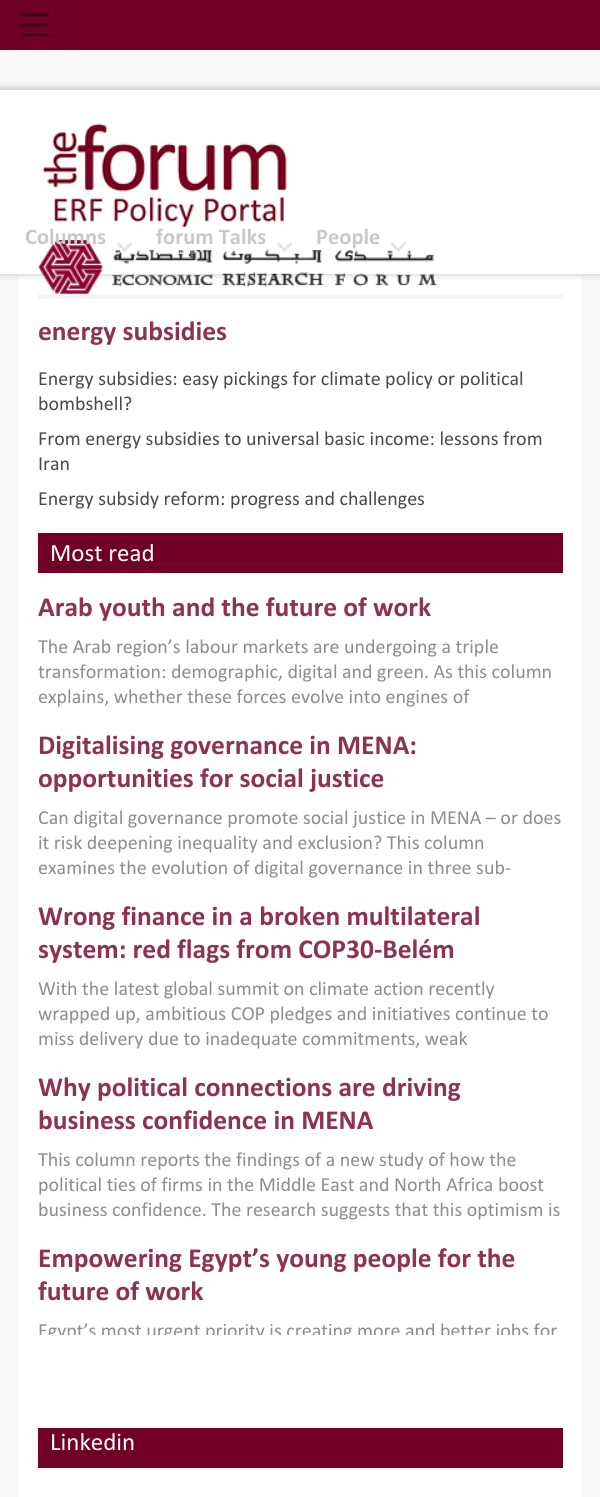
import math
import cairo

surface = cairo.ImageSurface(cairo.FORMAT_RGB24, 600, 1497)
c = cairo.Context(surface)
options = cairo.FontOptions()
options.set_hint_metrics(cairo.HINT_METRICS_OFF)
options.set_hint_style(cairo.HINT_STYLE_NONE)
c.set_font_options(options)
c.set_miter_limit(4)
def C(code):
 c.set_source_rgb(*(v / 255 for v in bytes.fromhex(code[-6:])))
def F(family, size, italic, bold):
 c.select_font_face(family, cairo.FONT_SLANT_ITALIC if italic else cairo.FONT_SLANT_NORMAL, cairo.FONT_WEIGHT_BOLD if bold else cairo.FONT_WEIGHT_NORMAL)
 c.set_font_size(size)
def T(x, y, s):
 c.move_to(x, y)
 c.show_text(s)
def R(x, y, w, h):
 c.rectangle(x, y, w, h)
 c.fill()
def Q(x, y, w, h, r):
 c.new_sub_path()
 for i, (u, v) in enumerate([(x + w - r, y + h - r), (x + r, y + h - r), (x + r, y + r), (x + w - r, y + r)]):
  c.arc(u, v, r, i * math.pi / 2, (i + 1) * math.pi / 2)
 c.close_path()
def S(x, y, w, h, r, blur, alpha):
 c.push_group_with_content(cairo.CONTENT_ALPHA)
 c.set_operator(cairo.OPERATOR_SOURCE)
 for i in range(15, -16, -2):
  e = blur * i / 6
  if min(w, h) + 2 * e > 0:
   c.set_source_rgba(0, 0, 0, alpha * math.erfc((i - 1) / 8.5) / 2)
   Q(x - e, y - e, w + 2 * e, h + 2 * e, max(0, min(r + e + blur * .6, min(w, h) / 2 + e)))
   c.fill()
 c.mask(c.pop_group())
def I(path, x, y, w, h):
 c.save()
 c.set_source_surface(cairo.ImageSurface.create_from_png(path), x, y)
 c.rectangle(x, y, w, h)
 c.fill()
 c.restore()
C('f9f9fb')
c.paint()
C('700026')
R(0,0,600,50)
Q(.5,.5,69,49,4.5)
C('650022')
c.set_line_width(1)
c.stroke()
c.new_path()
c.move_to(21,15)
c.line_to(49,15)
c.move_to(21,25)
c.line_to(49,25)
c.move_to(21,35)
c.line_to(49,35)
C('380013')
c.set_line_width(2.5)
c.set_line_cap(cairo.LINE_CAP_ROUND)
c.stroke()
C('ffffff')
R(19,274,562,1223)
C('000000')
S(0,89,600,184,0,4,.3)
C('ffffff')
R(0,90,600,184)
I('1.png',42,123,245,105)
I('2.png',38,240,399,54)
F('Calibri',22.5,0,1)
C('c8c8c8')
T(25,244,'Columns')
I('3.png',116,242,17,10)
T(156,244,'forum Talks')
I('4.png',276,242,17,10)
T(316,244,'People')
I('5.png',390,242,16,10)
C('f5f5f5')
R(38,294,525,5)
F('Calibri',27.5,0,1)
C('8d3351')
T(38,340,'energy subsidies')
F('Calibri',20,0,0)
C('4a4a4a')
T(38,385,'Energy subsidies: easy pickings for climate policy or political')
T(38,410,'bombshell?')
T(38,445,'From energy subsidies to universal basic income: lessons from')
T(38,470,'Iran')
T(38,505,'Energy subsidy reform: progress and challenges')
C('700026')
R(38,533,525,40)
F('Calibri',25,0,0)
C('ffffff')
T(50,561,'Most read')
F('Calibri',27.5,0,1)
C('8d3351')
T(38,616,'Arab youth and the future of work')
F('Calibri',20,0,0)
C('8d8d8d')
T(38,653,'The Arab region’s labour markets are undergoing a triple')
T(38,678,'transformation: demographic, digital and green. As this column')
T(38,703,'explains, whether these forces evolve into engines of')
F('Calibri',27.5,0,1)
C('8d3351')
T(38,754,'Digitalising governance in MENA:')
T(38,787,'opportunities for social justice')
F('Calibri',20,0,0)
C('8d8d8d')
T(38,824,'Can digital governance promote social justice in MENA – or does')
T(38,849,'it risk deepening inequality and exclusion? This column')
T(38,874,'examines the evolution of digital governance in three sub-')
F('Calibri',27.5,0,1)
C('8d3351')
T(38,925,'Wrong finance in a broken multilateral')
T(38,958,'system: red flags from COP30-Belém')
F('Calibri',20,0,0)
C('8d8d8d')
T(38,995,'With the latest global summit on climate action recently')
T(38,1020,'wrapped up, ambitious COP pledges and initiatives continue to')
T(38,1045,'miss delivery due to inadequate commitments, weak')
F('Calibri',27.5,0,1)
C('8d3351')
T(38,1096,'Why political connections are driving')
T(38,1129,'business confidence in MENA')
F('Calibri',20,0,0)
C('8d8d8d')
T(38,1166,'This column reports the findings of a new study of how the')
T(38,1191,'political ties of firms in the Middle East and North Africa boost')
T(38,1216,'business confidence. The research suggests that this optimism is')
F('Calibri',27.5,0,1)
C('8d3351')
T(38,1267,'Empowering Egypt’s young people for the')
T(38,1300,'future of work')
c.save()
c.rectangle(38,1320,525,15)
c.clip()
F('Calibri',20,0,0)
C('8d8d8d')
T(38,1337,'Egypt’s most urgent priority is creating more and better jobs for')
c.restore()
C('700026')
R(38,1428,525,40)
F('Calibri',25,0,0)
C('ffffff')
T(50,1450,'Linkedin')
surface.write_to_png('o.png')
